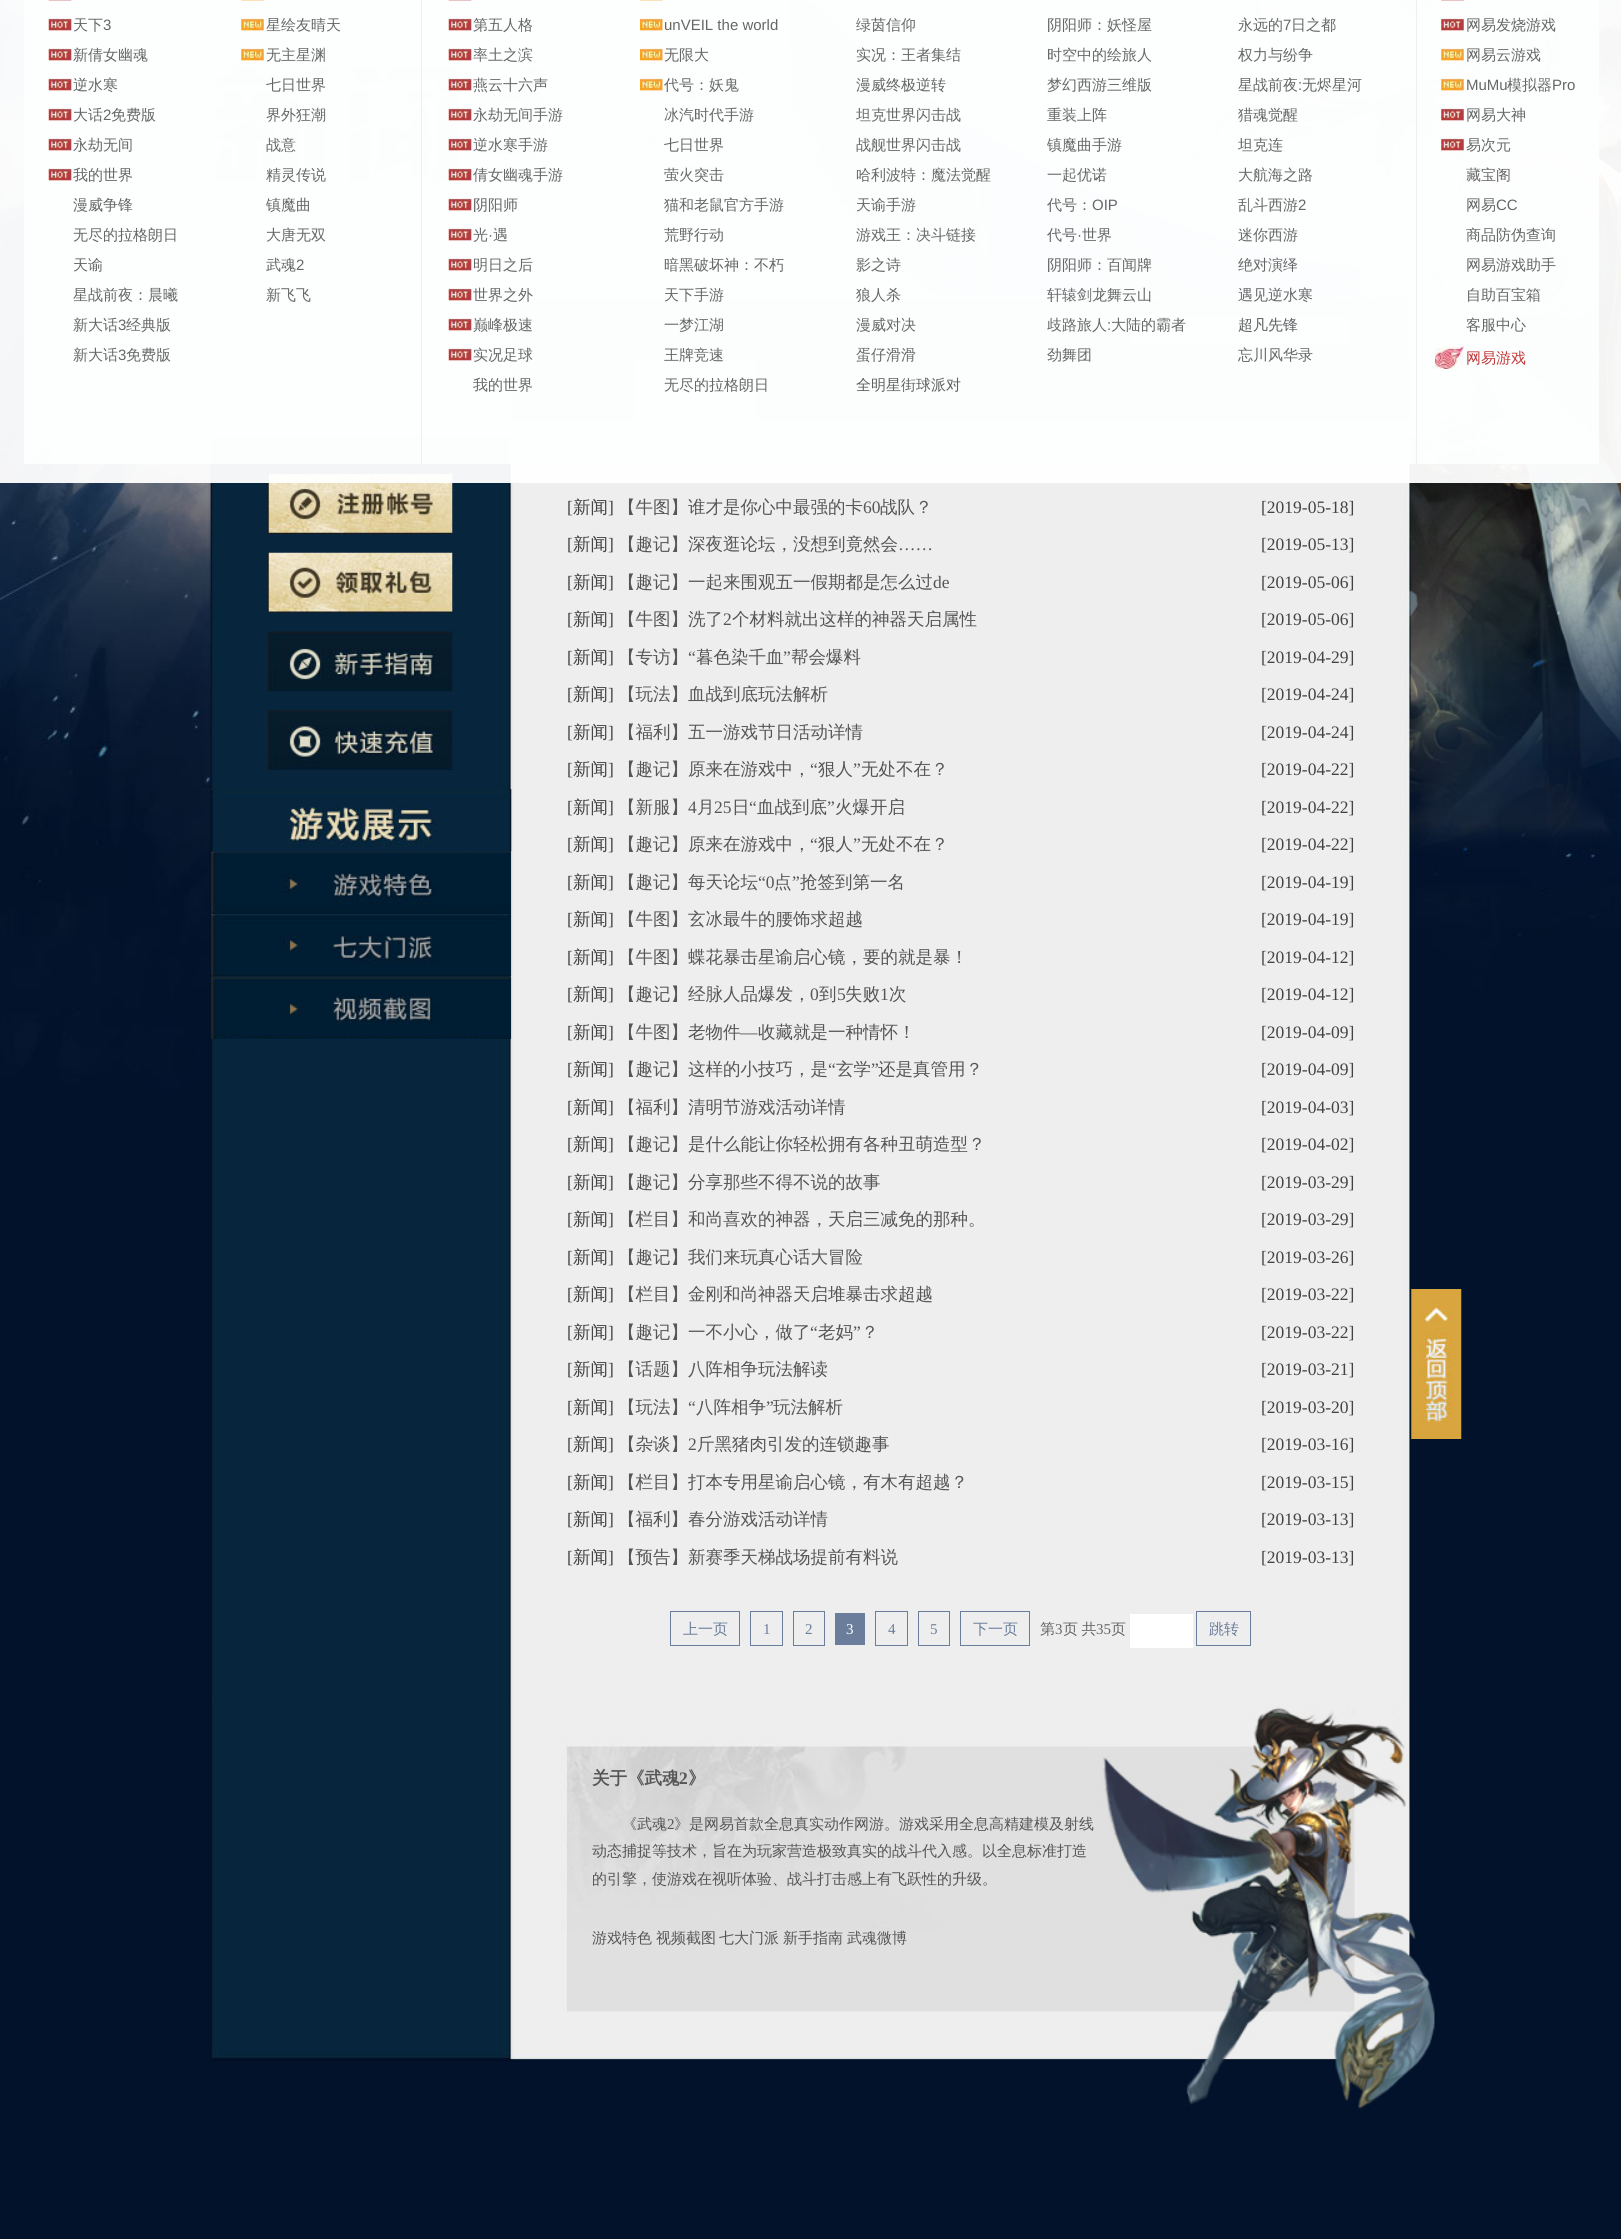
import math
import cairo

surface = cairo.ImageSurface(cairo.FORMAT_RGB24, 1621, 2239)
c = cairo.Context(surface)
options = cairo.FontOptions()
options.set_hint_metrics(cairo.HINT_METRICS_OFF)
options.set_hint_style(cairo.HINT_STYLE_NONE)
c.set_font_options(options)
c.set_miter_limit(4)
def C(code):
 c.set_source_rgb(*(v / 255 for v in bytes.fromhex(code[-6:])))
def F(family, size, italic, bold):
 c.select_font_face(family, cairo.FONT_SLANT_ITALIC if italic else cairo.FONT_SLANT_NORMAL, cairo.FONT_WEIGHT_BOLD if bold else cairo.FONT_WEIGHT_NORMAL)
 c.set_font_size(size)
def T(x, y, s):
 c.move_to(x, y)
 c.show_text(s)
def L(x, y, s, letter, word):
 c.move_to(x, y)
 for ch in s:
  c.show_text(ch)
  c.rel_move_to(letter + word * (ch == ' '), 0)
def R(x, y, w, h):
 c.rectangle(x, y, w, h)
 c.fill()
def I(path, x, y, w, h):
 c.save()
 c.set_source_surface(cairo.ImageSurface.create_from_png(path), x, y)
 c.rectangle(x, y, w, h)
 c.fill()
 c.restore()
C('ffffff')
c.paint()
I('33.png',0,0,1621,1700)
I('35.png',0,0,790,214)
C('07263c')
R(511,359,900,61)
I('36.png',211,299,301,138)
I('37.png',267,474,186,60)
C('272c36')
R(1131,316,190,28)
I('45.png',1321,316,28,28)
C('221917')
R(511,416,123,4)
C('eeeeee')
R(634,359,122,61)
C('221917')
R(756,416,123,4)
c.set_source_rgba(1,1,1,0.95)
R(0,0,1621,483)
c.set_source_rgba(0.992,0.996,0.996,0.95)
R(24,0,1575,464)
I('1.png',48,0,24,1)
I('2.png',48,18,24,13)
F('WenQuanYi Zen Hei Medium',15,0,0)
C('666666')
T(73,30,'天下')
F('Liberation Sans',15,0,0)
T(103,30,'3')
I('3.png',48,48,24,13)
F('WenQuanYi Zen Hei Medium',15,0,0)
T(73,60,'新倩女幽魂')
I('3.png',48,78,24,13)
T(73,90,'逆水寒')
I('4.png',48,108,24,13)
T(73,120,'大话')
F('Liberation Sans',15,0,0)
T(103,120,'2')
F('WenQuanYi Zen Hei Medium',15,0,0)
T(111,120,'免费版')
I('5.png',48,138,24,13)
T(73,150,'永劫无间')
I('6.png',48,168,24,13)
T(73,180,'我的世界')
T(73,210,'漫威争锋')
T(73,240,'无尽的拉格朗日')
T(73,270,'天谕')
T(73,300,'星战前夜：晨曦')
T(73,330,'新大话')
F('Liberation Sans',15,0,0)
T(118,330,'3')
F('WenQuanYi Zen Hei Medium',15,0,0)
T(126,330,'经典版')
T(73,360,'新大话')
F('Liberation Sans',15,0,0)
T(118,360,'3')
F('WenQuanYi Zen Hei Medium',15,0,0)
T(126,360,'免费版')
C('efefef')
R(421,0,1,464)
I('7.png',241,0,23,1)
I('8.png',241,18,23,13)
C('666666')
T(266,30,'星绘友晴天')
I('9.png',241,48,23,13)
T(266,60,'无主星渊')
T(266,90,'七日世界')
T(266,120,'界外狂潮')
T(266,150,'战意')
T(266,180,'精灵传说')
T(266,210,'镇魔曲')
T(266,240,'大唐无双')
T(266,270,'武魂')
F('Liberation Sans',15,0,0)
T(296,270,'2')
F('WenQuanYi Zen Hei Medium',15,0,0)
T(266,300,'新飞飞')
I('10.png',448,0,24,1)
I('11.png',448,18,24,13)
T(473,30,'第五人格')
I('12.png',448,48,24,13)
T(473,60,'率土之滨')
I('13.png',448,78,24,13)
T(473,90,'燕云十六声')
I('14.png',448,108,24,13)
T(473,120,'永劫无间手游')
I('14.png',448,138,24,13)
T(473,150,'逆水寒手游')
I('15.png',448,168,24,13)
T(473,180,'倩女幽魂手游')
I('16.png',448,198,24,13)
T(473,210,'阴阳师')
I('16.png',448,228,24,13)
T(473,240,'光')
F('Liberation Sans',15,0,0)
T(488,240,'·')
F('WenQuanYi Zen Hei Medium',15,0,0)
T(493,240,'遇')
I('17.png',448,258,24,13)
T(473,270,'明日之后')
I('18.png',448,288,24,13)
T(473,300,'世界之外')
I('19.png',448,318,24,13)
T(473,330,'巅峰极速')
I('20.png',448,348,24,13)
T(473,360,'实况足球')
T(473,390,'我的世界')
C('efefef')
R(1416,0,1,464)
I('21.png',640,0,23,1)
I('22.png',640,18,23,13)
F('Liberation Sans',15,0,0)
C('666666')
T(664,30,'unVEIL the world')
I('23.png',640,48,23,13)
F('WenQuanYi Zen Hei Medium',15,0,0)
T(664,60,'无限大')
I('24.png',640,78,23,13)
T(664,90,'代号：妖鬼')
T(664,120,'冰汽时代手游')
T(664,150,'七日世界')
T(664,180,'萤火突击')
T(664,210,'猫和老鼠官方手游')
T(664,240,'荒野行动')
T(664,270,'暗黑破坏神：不朽')
T(664,300,'天下手游')
T(664,330,'一梦江湖')
T(664,360,'王牌竞速')
T(664,390,'无尽的拉格朗日')
T(856,30,'绿茵信仰')
T(856,60,'实况：王者集结')
T(856,90,'漫威终极逆转')
T(856,120,'坦克世界闪击战')
T(856,150,'战舰世界闪击战')
T(856,180,'哈利波特：魔法觉醒')
T(856,210,'天谕手游')
T(856,240,'游戏王：决斗链接')
T(856,270,'影之诗')
T(856,300,'狼人杀')
T(856,330,'漫威对决')
T(856,360,'蛋仔滑滑')
C('5d5f60')
T(856,390,'全明星街球派对')
C('666666')
T(1047,30,'阴阳师：妖怪屋')
T(1047,60,'时空中的绘旅人')
T(1047,90,'梦幻西游三维版')
T(1047,120,'重装上阵')
T(1047,150,'镇魔曲手游')
T(1047,180,'一起优诺')
T(1047,210,'代号：')
F('Liberation Sans',15,0,0)
T(1092,210,'OIP')
F('WenQuanYi Zen Hei Medium',15,0,0)
T(1047,240,'代号')
F('Liberation Sans',15,0,0)
C('5d5f60')
T(1077,240,'·')
F('WenQuanYi Zen Hei Medium',15,0,0)
C('666666')
T(1082,240,'世界')
T(1047,270,'阴阳师：百闻牌')
T(1047,300,'轩辕剑龙舞云山')
T(1047,330,'歧路旅人')
F('Liberation Sans',15,0,0)
T(1107,330,':')
F('WenQuanYi Zen Hei Medium',15,0,0)
T(1111,330,'大陆的霸者')
T(1047,360,'劲舞团')
T(1238,30,'永远的')
F('Liberation Sans',15,0,0)
T(1283,30,'7')
F('WenQuanYi Zen Hei Medium',15,0,0)
T(1291,30,'日之都')
T(1238,60,'权力与纷争')
T(1238,90,'星战前夜')
F('Liberation Sans',15,0,0)
T(1298,90,':')
F('WenQuanYi Zen Hei Medium',15,0,0)
T(1302,90,'无烬星河')
T(1238,120,'猎魂觉醒')
T(1238,150,'坦克连')
T(1238,180,'大航海之路')
T(1238,210,'乱斗西游')
F('Liberation Sans',15,0,0)
T(1298,210,'2')
F('WenQuanYi Zen Hei Medium',15,0,0)
T(1238,240,'迷你西游')
T(1238,270,'绝对演绎')
T(1238,300,'遇见逆水寒')
C('5d5f60')
T(1238,330,'超凡先锋')
C('666666')
T(1238,360,'忘川风华录')
I('25.png',1441,0,23,1)
I('26.png',1441,18,23,13)
T(1466,30,'网易发烧游戏')
I('27.png',1441,48,23,13)
T(1466,60,'网易云游戏')
I('28.png',1441,78,23,13)
F('Liberation Sans',15,0,0)
T(1466,90,'MuMu')
F('WenQuanYi Zen Hei Medium',15,0,0)
T(1507,90,'模拟器')
F('Liberation Sans',15,0,0)
T(1552,90,'Pro')
I('29.png',1441,108,23,13)
F('WenQuanYi Zen Hei Medium',15,0,0)
T(1466,120,'网易大神')
I('30.png',1441,138,23,13)
T(1466,150,'易次元')
T(1466,180,'藏宝阁')
T(1466,210,'网易')
F('Liberation Sans',15,0,0)
T(1496,210,'CC')
F('WenQuanYi Zen Hei Medium',15,0,0)
T(1466,240,'商品防伪查询')
T(1466,270,'网易游戏助手')
T(1466,300,'自助百宝箱')
T(1466,330,'客服中心')
I('31.png',1435,346,29,23)
C('bf3a3a')
T(1466,363,'网易游戏')
I('32.png',0,1700,1621,539)
I('34.png',211,1702,1224,537)
I('38.png',267,552,186,61)
I('39.png',267,631,186,61)
I('40.png',267,710,186,60)
I('41.png',211,789,301,63)
I('42.png',211,851,301,63)
I('43.png',211,914,301,63)
I('44.png',211,976,301,63)
F('Liberation Serif',17.5,0,0)
C('434343')
T(567,513,'[')
F('WenQuanYi Zen Hei Medium',17.5,0,0)
T(573,513,'新闻')
F('Liberation Serif',17.5,0,0)
T(608,513,']')
F('WenQuanYi Zen Hei Medium',17.5,0,0)
C('565656')
T(618,513,'【牛图】谁才是你心中最强的卡')
F('Liberation Serif',17.5,0,0)
T(863,513,'60')
F('WenQuanYi Zen Hei Medium',17.5,0,0)
T(880,513,'战队？')
F('Liberation Serif',17.5,0,0)
C('434343')
T(1261,513,'[2019-05-18]')
T(567,550,'[')
F('WenQuanYi Zen Hei Medium',17.5,0,0)
T(573,550,'新闻')
F('Liberation Serif',17.5,0,0)
T(608,550,']')
F('WenQuanYi Zen Hei Medium',17.5,0,0)
C('565656')
T(618,550,'【趣记】深夜逛论坛，没想到竟然会')
F('Liberation Serif',17.5,0,0)
T(898,550,'……')
C('434343')
T(1261,550,'[2019-05-13]')
T(567,588,'[')
F('WenQuanYi Zen Hei Medium',17.5,0,0)
T(573,588,'新闻')
F('Liberation Serif',17.5,0,0)
T(608,588,']')
F('WenQuanYi Zen Hei Medium',17.5,0,0)
C('565656')
T(618,588,'【趣记】一起来围观五一假期都是怎么过')
F('Liberation Serif',17.5,0,0)
T(933,588,'de')
C('434343')
T(1261,588,'[2019-05-06]')
T(567,625,'[')
F('WenQuanYi Zen Hei Medium',17.5,0,0)
T(573,625,'新闻')
F('Liberation Serif',17.5,0,0)
T(608,625,']')
F('WenQuanYi Zen Hei Medium',17.5,0,0)
C('565656')
T(618,625,'【牛图】洗了')
F('Liberation Serif',17.5,0,0)
T(723,625,'2')
F('WenQuanYi Zen Hei Medium',17.5,0,0)
T(732,625,'个材料就出这样的神器天启属性')
F('Liberation Serif',17.5,0,0)
C('434343')
T(1261,625,'[2019-05-06]')
T(567,663,'[')
F('WenQuanYi Zen Hei Medium',17.5,0,0)
T(573,663,'新闻')
F('Liberation Serif',17.5,0,0)
T(608,663,']')
F('WenQuanYi Zen Hei Medium',17.5,0,0)
C('565656')
T(618,663,'【专访】')
F('Liberation Serif',17.5,0,0)
T(688,663,'“')
F('WenQuanYi Zen Hei Medium',17.5,0,0)
T(696,663,'暮色染千血')
F('Liberation Serif',17.5,0,0)
T(783,663,'”')
F('WenQuanYi Zen Hei Medium',17.5,0,0)
T(791,663,'帮会爆料')
F('Liberation Serif',17.5,0,0)
C('434343')
T(1261,663,'[2019-04-29]')
T(567,700,'[')
F('WenQuanYi Zen Hei Medium',17.5,0,0)
T(573,700,'新闻')
F('Liberation Serif',17.5,0,0)
T(608,700,']')
F('WenQuanYi Zen Hei Medium',17.5,0,0)
C('565656')
T(618,700,'【玩法】血战到底玩法解析')
F('Liberation Serif',17.5,0,0)
C('434343')
T(1261,700,'[2019-04-24]')
T(567,738,'[')
F('WenQuanYi Zen Hei Medium',17.5,0,0)
T(573,738,'新闻')
F('Liberation Serif',17.5,0,0)
T(608,738,']')
F('WenQuanYi Zen Hei Medium',17.5,0,0)
C('565656')
T(618,738,'【福利】五一游戏节日活动详情')
F('Liberation Serif',17.5,0,0)
C('434343')
T(1261,738,'[2019-04-24]')
T(567,775,'[')
F('WenQuanYi Zen Hei Medium',17.5,0,0)
T(573,775,'新闻')
F('Liberation Serif',17.5,0,0)
T(608,775,']')
F('WenQuanYi Zen Hei Medium',17.5,0,0)
C('565656')
T(618,775,'【趣记】原来在游戏中，')
F('Liberation Serif',17.5,0,0)
T(810,775,'“')
F('WenQuanYi Zen Hei Medium',17.5,0,0)
T(818,775,'狠人')
F('Liberation Serif',17.5,0,0)
T(853,775,'”')
F('WenQuanYi Zen Hei Medium',17.5,0,0)
T(861,775,'无处不在？')
F('Liberation Serif',17.5,0,0)
C('434343')
T(1261,775,'[2019-04-22]')
T(567,813,'[')
F('WenQuanYi Zen Hei Medium',17.5,0,0)
T(573,813,'新闻')
F('Liberation Serif',17.5,0,0)
T(608,813,']')
F('WenQuanYi Zen Hei Medium',17.5,0,0)
C('565656')
T(618,813,'【新服】')
F('Liberation Serif',17.5,0,0)
T(688,813,'4')
F('WenQuanYi Zen Hei Medium',17.5,0,0)
T(697,813,'月')
F('Liberation Serif',17.5,0,0)
T(714,813,'25')
F('WenQuanYi Zen Hei Medium',17.5,0,0)
T(732,813,'日')
F('Liberation Serif',17.5,0,0)
T(749,813,'“')
F('WenQuanYi Zen Hei Medium',17.5,0,0)
T(757,813,'血战到底')
F('Liberation Serif',17.5,0,0)
T(827,813,'”')
F('WenQuanYi Zen Hei Medium',17.5,0,0)
T(835,813,'火爆开启')
F('Liberation Serif',17.5,0,0)
C('434343')
T(1261,813,'[2019-04-22]')
T(567,850,'[')
F('WenQuanYi Zen Hei Medium',17.5,0,0)
T(573,850,'新闻')
F('Liberation Serif',17.5,0,0)
T(608,850,']')
F('WenQuanYi Zen Hei Medium',17.5,0,0)
C('565656')
T(618,850,'【趣记】原来在游戏中，')
F('Liberation Serif',17.5,0,0)
T(810,850,'“')
F('WenQuanYi Zen Hei Medium',17.5,0,0)
T(818,850,'狠人')
F('Liberation Serif',17.5,0,0)
T(853,850,'”')
F('WenQuanYi Zen Hei Medium',17.5,0,0)
T(861,850,'无处不在？')
F('Liberation Serif',17.5,0,0)
C('434343')
T(1261,850,'[2019-04-22]')
T(567,888,'[')
F('WenQuanYi Zen Hei Medium',17.5,0,0)
T(573,888,'新闻')
F('Liberation Serif',17.5,0,0)
T(608,888,']')
F('WenQuanYi Zen Hei Medium',17.5,0,0)
C('565656')
T(618,888,'【趣记】每天论坛')
F('Liberation Serif',17.5,0,0)
T(758,888,'“0')
F('WenQuanYi Zen Hei Medium',17.5,0,0)
T(774,888,'点')
F('Liberation Serif',17.5,0,0)
T(792,888,'”')
F('WenQuanYi Zen Hei Medium',17.5,0,0)
T(800,888,'抢签到第一名')
F('Liberation Serif',17.5,0,0)
C('434343')
T(1261,888,'[2019-04-19]')
T(567,925,'[')
F('WenQuanYi Zen Hei Medium',17.5,0,0)
T(573,925,'新闻')
F('Liberation Serif',17.5,0,0)
T(608,925,']')
F('WenQuanYi Zen Hei Medium',17.5,0,0)
C('565656')
T(618,925,'【牛图】玄冰最牛的腰饰求超越')
F('Liberation Serif',17.5,0,0)
C('434343')
T(1261,925,'[2019-04-19]')
T(567,963,'[')
F('WenQuanYi Zen Hei Medium',17.5,0,0)
T(573,963,'新闻')
F('Liberation Serif',17.5,0,0)
T(608,963,']')
F('WenQuanYi Zen Hei Medium',17.5,0,0)
C('565656')
T(618,963,'【牛图】蝶花暴击星谕启心镜，要的就是暴！')
F('Liberation Serif',17.5,0,0)
C('434343')
T(1261,963,'[2019-04-12]')
T(567,1000,'[')
F('WenQuanYi Zen Hei Medium',17.5,0,0)
T(573,1000,'新闻')
F('Liberation Serif',17.5,0,0)
T(608,1000,']')
F('WenQuanYi Zen Hei Medium',17.5,0,0)
C('565656')
T(618,1000,'【趣记】经脉人品爆发，')
F('Liberation Serif',17.5,0,0)
T(810,1000,'0')
F('WenQuanYi Zen Hei Medium',17.5,0,0)
T(819,1000,'到')
F('Liberation Serif',17.5,0,0)
T(837,1000,'5')
F('WenQuanYi Zen Hei Medium',17.5,0,0)
T(845,1000,'失败')
F('Liberation Serif',17.5,0,0)
T(880,1000,'1')
F('WenQuanYi Zen Hei Medium',17.5,0,0)
T(889,1000,'次')
F('Liberation Serif',17.5,0,0)
C('434343')
T(1261,1000,'[2019-04-12]')
T(567,1038,'[')
F('WenQuanYi Zen Hei Medium',17.5,0,0)
T(573,1038,'新闻')
F('Liberation Serif',17.5,0,0)
T(608,1038,']')
F('WenQuanYi Zen Hei Medium',17.5,0,0)
C('565656')
T(618,1038,'【牛图】老物件')
F('Liberation Serif',17.5,0,0)
T(740,1038,'—')
F('WenQuanYi Zen Hei Medium',17.5,0,0)
T(758,1038,'收藏就是一种情怀！')
F('Liberation Serif',17.5,0,0)
C('434343')
T(1261,1038,'[2019-04-09]')
T(567,1075,'[')
F('WenQuanYi Zen Hei Medium',17.5,0,0)
T(573,1075,'新闻')
F('Liberation Serif',17.5,0,0)
T(608,1075,']')
F('WenQuanYi Zen Hei Medium',17.5,0,0)
C('565656')
T(618,1075,'【趣记】这样的小技巧，是')
F('Liberation Serif',17.5,0,0)
T(828,1075,'“')
F('WenQuanYi Zen Hei Medium',17.5,0,0)
T(836,1075,'玄学')
F('Liberation Serif',17.5,0,0)
T(871,1075,'”')
F('WenQuanYi Zen Hei Medium',17.5,0,0)
T(878,1075,'还是真管用？')
F('Liberation Serif',17.5,0,0)
C('434343')
T(1261,1075,'[2019-04-09]')
T(567,1113,'[')
F('WenQuanYi Zen Hei Medium',17.5,0,0)
T(573,1113,'新闻')
F('Liberation Serif',17.5,0,0)
T(608,1113,']')
F('WenQuanYi Zen Hei Medium',17.5,0,0)
C('565656')
T(618,1113,'【福利】清明节游戏活动详情')
F('Liberation Serif',17.5,0,0)
C('434343')
T(1261,1113,'[2019-04-03]')
T(567,1150,'[')
F('WenQuanYi Zen Hei Medium',17.5,0,0)
T(573,1150,'新闻')
F('Liberation Serif',17.5,0,0)
T(608,1150,']')
F('WenQuanYi Zen Hei Medium',17.5,0,0)
C('565656')
T(618,1150,'【趣记】是什么能让你轻松拥有各种丑萌造型？')
F('Liberation Serif',17.5,0,0)
C('434343')
T(1261,1150,'[2019-04-02]')
T(567,1188,'[')
F('WenQuanYi Zen Hei Medium',17.5,0,0)
T(573,1188,'新闻')
F('Liberation Serif',17.5,0,0)
T(608,1188,']')
F('WenQuanYi Zen Hei Medium',17.5,0,0)
C('565656')
T(618,1188,'【趣记】分享那些不得不说的故事')
F('Liberation Serif',17.5,0,0)
C('434343')
T(1261,1188,'[2019-03-29]')
T(567,1225,'[')
F('WenQuanYi Zen Hei Medium',17.5,0,0)
T(573,1225,'新闻')
F('Liberation Serif',17.5,0,0)
T(608,1225,']')
F('WenQuanYi Zen Hei Medium',17.5,0,0)
C('565656')
T(618,1225,'【栏目】和尚喜欢的神器，天启三减免的那种。')
F('Liberation Serif',17.5,0,0)
C('434343')
T(1261,1225,'[2019-03-29]')
T(567,1263,'[')
F('WenQuanYi Zen Hei Medium',17.5,0,0)
T(573,1263,'新闻')
F('Liberation Serif',17.5,0,0)
T(608,1263,']')
F('WenQuanYi Zen Hei Medium',17.5,0,0)
C('565656')
T(618,1263,'【趣记】我们来玩真心话大冒险')
F('Liberation Serif',17.5,0,0)
C('434343')
T(1261,1263,'[2019-03-26]')
T(567,1300,'[')
F('WenQuanYi Zen Hei Medium',17.5,0,0)
T(573,1300,'新闻')
F('Liberation Serif',17.5,0,0)
T(608,1300,']')
F('WenQuanYi Zen Hei Medium',17.5,0,0)
C('565656')
T(618,1300,'【栏目】金刚和尚神器天启堆暴击求超越')
F('Liberation Serif',17.5,0,0)
C('434343')
T(1261,1300,'[2019-03-22]')
T(567,1338,'[')
F('WenQuanYi Zen Hei Medium',17.5,0,0)
T(573,1338,'新闻')
F('Liberation Serif',17.5,0,0)
T(608,1338,']')
F('WenQuanYi Zen Hei Medium',17.5,0,0)
C('565656')
T(618,1338,'【趣记】一不小心，做了')
F('Liberation Serif',17.5,0,0)
T(810,1338,'“')
F('WenQuanYi Zen Hei Medium',17.5,0,0)
T(818,1338,'老妈')
F('Liberation Serif',17.5,0,0)
T(853,1338,'”')
F('WenQuanYi Zen Hei Medium',17.5,0,0)
T(861,1338,'？')
F('Liberation Serif',17.5,0,0)
C('434343')
T(1261,1338,'[2019-03-22]')
T(567,1375,'[')
F('WenQuanYi Zen Hei Medium',17.5,0,0)
T(573,1375,'新闻')
F('Liberation Serif',17.5,0,0)
T(608,1375,']')
F('WenQuanYi Zen Hei Medium',17.5,0,0)
C('565656')
T(618,1375,'【话题】八阵相争玩法解读')
F('Liberation Serif',17.5,0,0)
C('434343')
T(1261,1375,'[2019-03-21]')
T(567,1413,'[')
F('WenQuanYi Zen Hei Medium',17.5,0,0)
T(573,1413,'新闻')
F('Liberation Serif',17.5,0,0)
T(608,1413,']')
F('WenQuanYi Zen Hei Medium',17.5,0,0)
C('565656')
T(618,1413,'【玩法】')
F('Liberation Serif',17.5,0,0)
T(688,1413,'“')
F('WenQuanYi Zen Hei Medium',17.5,0,0)
T(696,1413,'八阵相争')
F('Liberation Serif',17.5,0,0)
T(766,1413,'”')
F('WenQuanYi Zen Hei Medium',17.5,0,0)
T(773,1413,'玩法解析')
F('Liberation Serif',17.5,0,0)
C('434343')
T(1261,1413,'[2019-03-20]')
T(567,1450,'[')
F('WenQuanYi Zen Hei Medium',17.5,0,0)
T(573,1450,'新闻')
F('Liberation Serif',17.5,0,0)
T(608,1450,']')
F('WenQuanYi Zen Hei Medium',17.5,0,0)
C('565656')
T(618,1450,'【杂谈】')
F('Liberation Serif',17.5,0,0)
T(688,1450,'2')
F('WenQuanYi Zen Hei Medium',17.5,0,0)
T(697,1450,'斤黑猪肉引发的连锁趣事')
F('Liberation Serif',17.5,0,0)
C('434343')
T(1261,1450,'[2019-03-16]')
T(567,1488,'[')
F('WenQuanYi Zen Hei Medium',17.5,0,0)
T(573,1488,'新闻')
F('Liberation Serif',17.5,0,0)
T(608,1488,']')
F('WenQuanYi Zen Hei Medium',17.5,0,0)
C('565656')
T(618,1488,'【栏目】打本专用星谕启心镜，有木有超越？')
F('Liberation Serif',17.5,0,0)
C('434343')
T(1261,1488,'[2019-03-15]')
T(567,1525,'[')
F('WenQuanYi Zen Hei Medium',17.5,0,0)
T(573,1525,'新闻')
F('Liberation Serif',17.5,0,0)
T(608,1525,']')
F('WenQuanYi Zen Hei Medium',17.5,0,0)
C('565656')
T(618,1525,'【福利】春分游戏活动详情')
F('Liberation Serif',17.5,0,0)
C('434343')
T(1261,1525,'[2019-03-13]')
T(567,1563,'[')
F('WenQuanYi Zen Hei Medium',17.5,0,0)
T(573,1563,'新闻')
F('Liberation Serif',17.5,0,0)
T(608,1563,']')
F('WenQuanYi Zen Hei Medium',17.5,0,0)
C('565656')
T(618,1563,'【预告】新赛季天梯战场提前有料说')
F('Liberation Serif',17.5,0,0)
C('434343')
T(1261,1563,'[2019-03-13]')
c.rectangle(670.5,1611.5,69,34)
C('6a7d9b')
c.set_line_width(1)
c.stroke()
F('WenQuanYi Zen Hei Medium',15,0,0)
T(683,1634,'上一页')
c.rectangle(750.5,1611.5,32,34)
c.stroke()
F('Liberation Serif',15,0,0)
T(763,1634,'1')
c.rectangle(793.5,1611.5,31,34)
c.stroke()
T(805,1634,'2')
R(835,1613,30,32)
C('ffffff')
T(846,1634,'3')
c.rectangle(875.5,1611.5,32,34)
C('6a7d9b')
c.stroke()
T(888,1634,'4')
c.rectangle(918.5,1611.5,31,34)
c.stroke()
T(930,1634,'5')
c.rectangle(960.5,1611.5,69,34)
c.stroke()
F('WenQuanYi Zen Hei Medium',15,0,0)
T(973,1634,'下一页')
C('666666')
T(1040,1634,'第')
F('Liberation Serif',15,0,0)
T(1055,1634,'3')
F('WenQuanYi Zen Hei Medium',15,0,0)
L(1063,1634,'页 共',0,-1)
F('Liberation Serif',15,0,0)
T(1096,1634,'35')
F('WenQuanYi Zen Hei Medium',15,0,0)
T(1111,1634,'页')
C('ffffff')
R(1130,1614,63,34)
c.rectangle(1196.5,1611.5,54,34)
C('6a7d9b')
c.stroke()
T(1209,1634,'跳转')
F('WenQuanYi Zen Hei',17.5,0,1)
C('565656')
T(592,1784,'关于《武魂')
F('Liberation Serif',17.5,0,1)
T(679,1784,'2')
F('WenQuanYi Zen Hei',17.5,0,1)
T(688,1784,'》')
F('WenQuanYi Zen Hei Medium',15,0,0)
T(622,1829,'《武魂')
F('Liberation Serif',15,0,0)
T(667,1829,'2')
F('WenQuanYi Zen Hei Medium',15,0,0)
T(674,1829,'》是网易首款全息真实动作网游。游戏采用全息高精建模及射线')
T(592,1856,'动态捕捉等技术，旨在为玩家营造极致真实的战斗代入感。以全息标准打造')
T(592,1884,'的引擎，使游戏在视听体验、战斗打击感上有飞跃性的升级。')
T(592,1943,'游戏特色')
T(656,1943,'视频截图')
T(719,1943,'七大门派')
T(783,1943,'新手指南')
T(847,1943,'武魂微博')
I('46.png',1411,1289,51,150)
surface.write_to_png('o.png')
